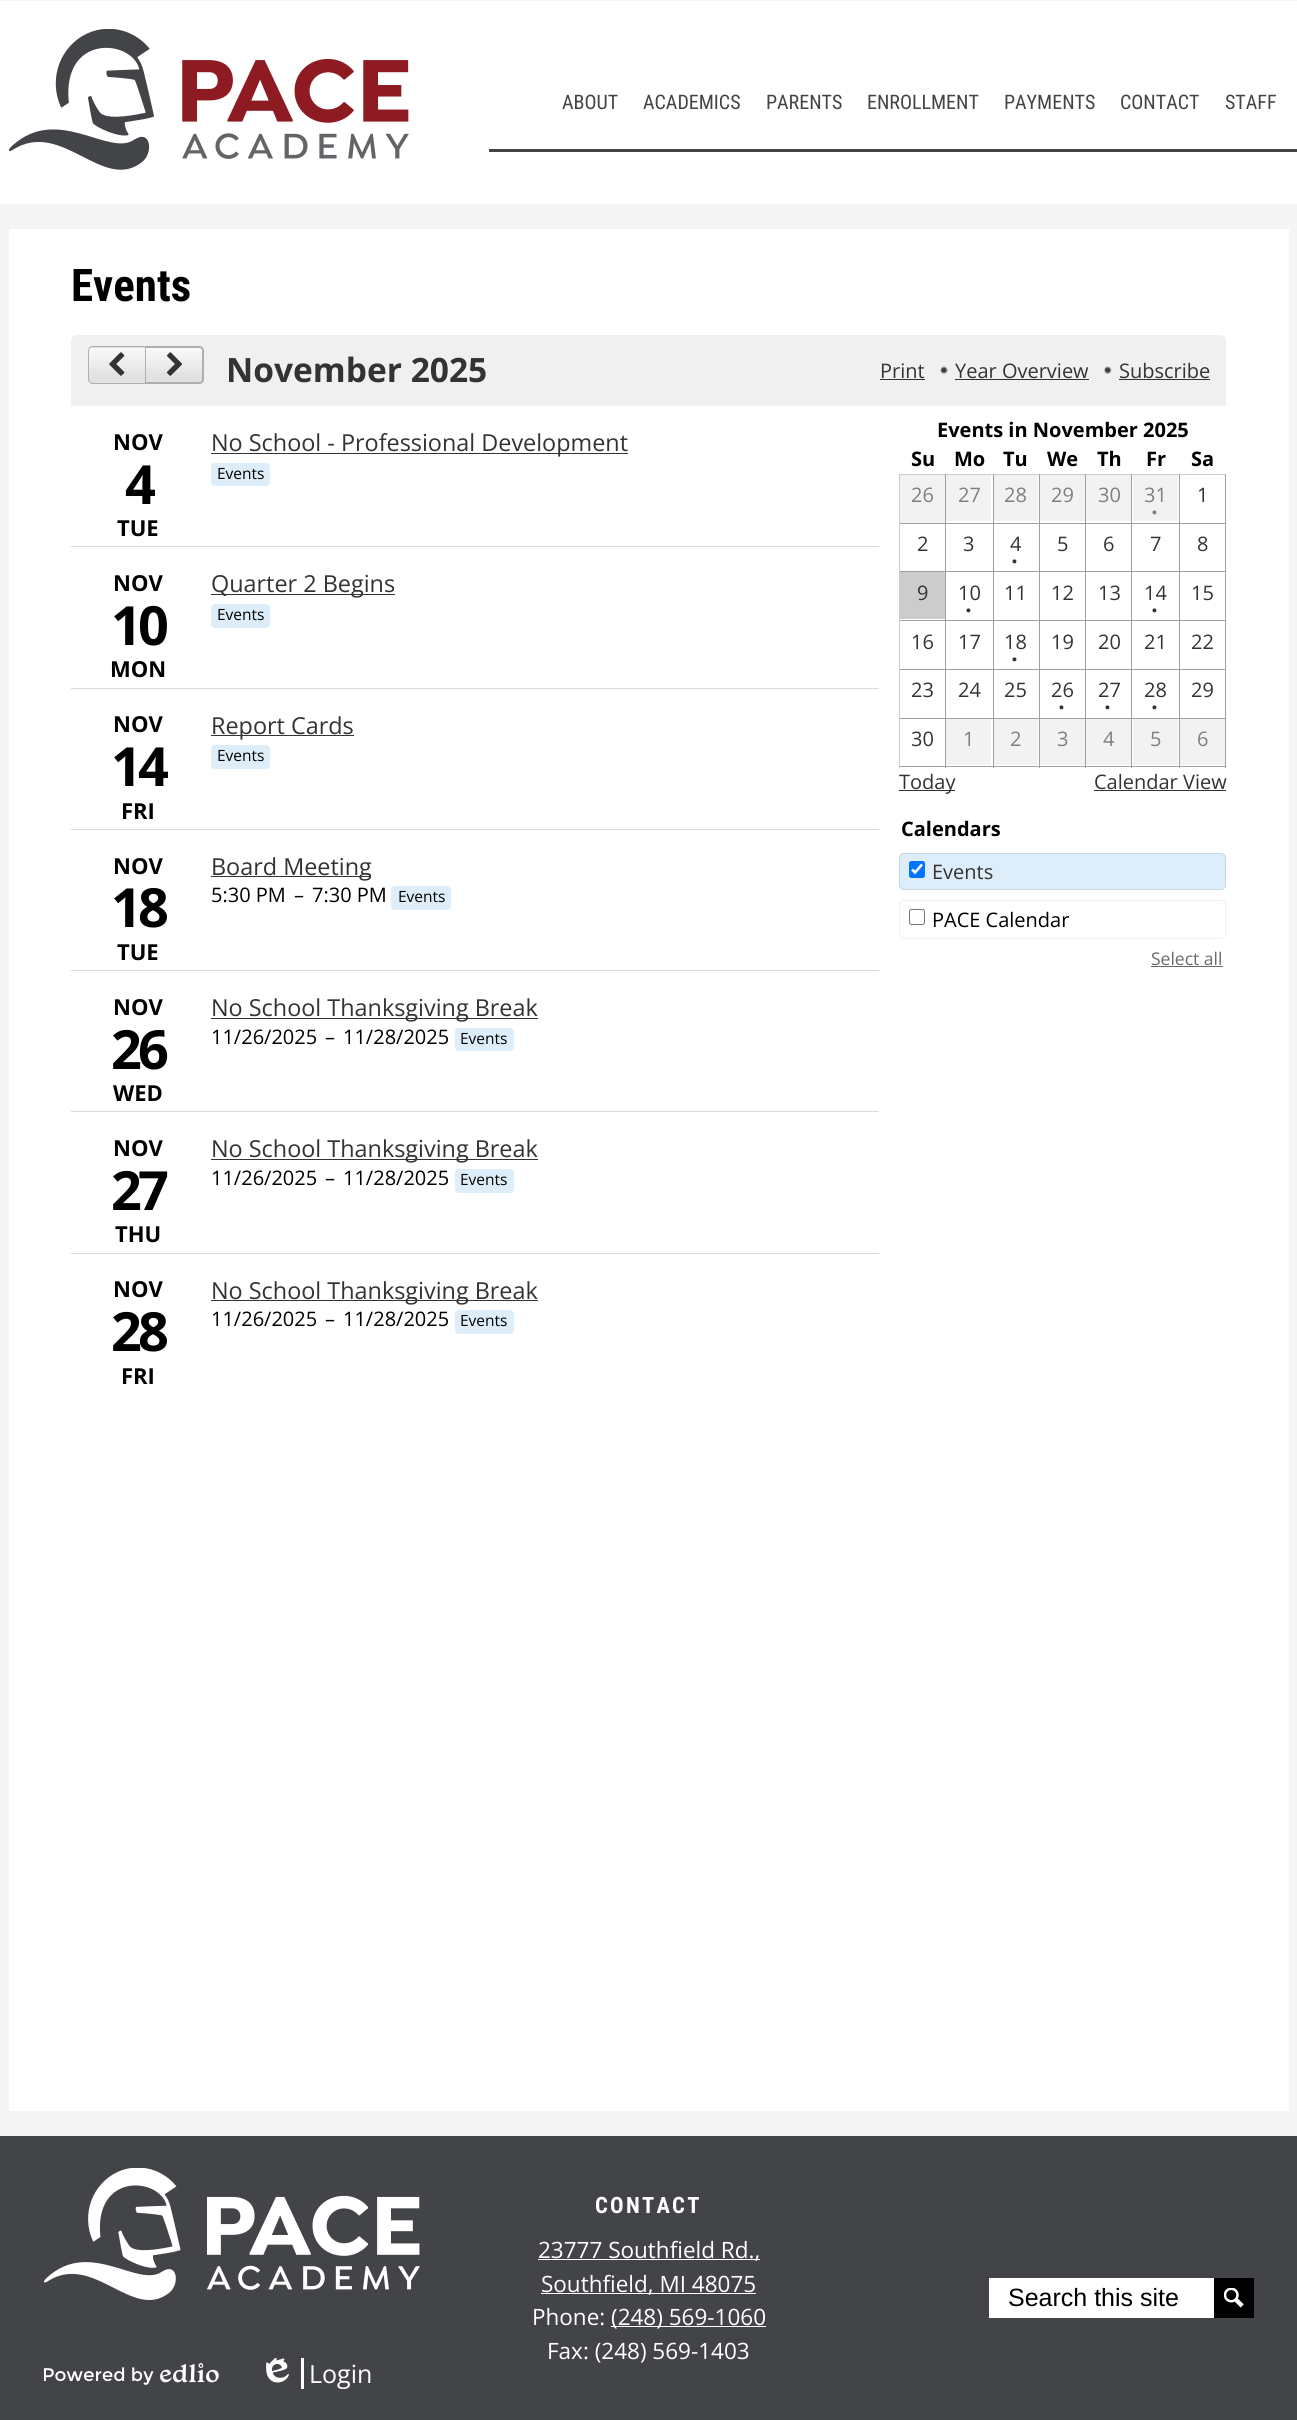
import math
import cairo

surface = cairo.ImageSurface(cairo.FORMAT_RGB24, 1297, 2420)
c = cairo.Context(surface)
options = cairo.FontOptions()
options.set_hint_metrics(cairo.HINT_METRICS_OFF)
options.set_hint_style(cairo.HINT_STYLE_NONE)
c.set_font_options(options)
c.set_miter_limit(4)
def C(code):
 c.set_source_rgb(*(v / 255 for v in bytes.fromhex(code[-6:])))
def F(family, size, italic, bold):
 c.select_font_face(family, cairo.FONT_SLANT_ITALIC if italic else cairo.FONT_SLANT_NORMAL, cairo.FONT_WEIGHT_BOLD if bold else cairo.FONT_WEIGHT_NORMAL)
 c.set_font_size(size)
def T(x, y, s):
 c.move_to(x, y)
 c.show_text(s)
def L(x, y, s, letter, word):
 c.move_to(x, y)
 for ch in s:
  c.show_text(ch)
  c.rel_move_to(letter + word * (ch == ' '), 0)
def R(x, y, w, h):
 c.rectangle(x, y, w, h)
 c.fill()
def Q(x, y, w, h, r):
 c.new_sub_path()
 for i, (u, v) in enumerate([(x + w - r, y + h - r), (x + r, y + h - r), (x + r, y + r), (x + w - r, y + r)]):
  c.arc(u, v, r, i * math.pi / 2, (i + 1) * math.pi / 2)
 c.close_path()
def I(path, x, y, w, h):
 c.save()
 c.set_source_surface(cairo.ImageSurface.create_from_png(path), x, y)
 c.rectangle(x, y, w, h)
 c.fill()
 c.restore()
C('f5f5f5')
c.paint()
C('ffffff')
R(0,1,1297,203)
I('1.png',9,29,400,141)
F('Roboto Condensed',20,0,0)
C('424448')
T(562,109,'ABOUT')
T(643,109,'ACADEMICS')
T(766,109,'PARENTS')
T(867,109,'ENROLLMENT')
T(1004,109,'PAYMENTS')
T(1120,109,'CONTACT')
T(1225,109,'STAFF')
R(489,149,808,3)
C('ffffff')
R(9,229,1280,1882)
F('Roboto Condensed',45,0,1)
C('000000')
T(71,301,'Events')
C('f0f0f0')
c.new_path()
c.move_to(77,335)
c.line_to(1220,335)
c.curve_to(1223.5,335,1226,337.5,1226,341)
c.line_to(1226,406)
c.line_to(71,406)
c.line_to(71,341)
c.curve_to(71,337.5,73.5,335,77,335)
c.close_path()
c.fill()
C('e2e2e2')
c.new_path()
c.move_to(93,346)
c.line_to(146,346)
c.line_to(146,384)
c.line_to(93,384)
c.curve_to(90,384,88,382,88,379)
c.line_to(88,351)
c.curve_to(88,348,90,346,93,346)
c.close_path()
c.fill()
gradient = cairo.LinearGradient(89,348,89,376)
gradient.add_color_stop_rgba(0,1,1,1,.8)
gradient.add_color_stop_rgba(1,1,1,1,0)
c.set_source(gradient)
R(88,348,57,25)
c.new_path()
c.move_to(93,346.5)
c.line_to(145.5,346.5)
c.line_to(145.5,383.5)
c.line_to(93,383.5)
c.curve_to(90.5,383.5,88.5,381.5,88.5,379)
c.line_to(88.5,351)
c.curve_to(88.5,348.5,90.5,346.5,93,346.5)
c.close_path()
C('aeafb3')
c.set_line_width(1)
c.stroke()
I('2.png',109,352,16,24)
C('e2e2e2')
c.new_path()
c.move_to(146,346)
c.line_to(199,346)
c.curve_to(202,346,204,348,204,351)
c.line_to(204,379)
c.curve_to(204,382,202,384,199,384)
c.line_to(146,384)
c.close_path()
c.fill()
gradient = cairo.LinearGradient(146,348,146,376)
gradient.add_color_stop_rgba(0,1,1,1,.8)
gradient.add_color_stop_rgba(1,1,1,1,0)
c.set_source(gradient)
R(146,348,58,25)
C('aeafb3')
c.set_fill_rule(cairo.FILL_RULE_EVEN_ODD)
c.new_path()
c.move_to(146,346)
c.line_to(199,346)
c.curve_to(202,346,204,348,204,351)
c.line_to(204,379)
c.curve_to(204,382,202,384,199,384)
c.line_to(146,384)
c.close_path()
c.move_to(146,348)
c.line_to(199,348)
c.curve_to(201,348,202,349,202,351)
c.line_to(202,379)
c.curve_to(202,381,201,382,199,382)
c.line_to(146,382)
c.close_path()
c.fill()
I('3.png',167,352,15,24)
F('Open Sans',33.5,0,1)
C('333333')
T(226,382,'November 2025')
I('4.png',940,366,8,8)
F('Open Sans',20,0,0)
T(880,378,'Print')
R(880,379,45,1)
I('5.png',1103,366,9,8)
T(955,378,'Year Overview')
R(955,379,134,1)
T(1119,378,'Subscribe')
R(1119,379,91,1)
F('Open Sans',22,0,1)
C('000000')
T(113,450,'NOV')
F('Open Sans',54,0,1)
L(125,504,'4',-4,0)
F('Open Sans',22,0,1)
T(117,536,'TUE')
C('333333')
R(211,453,417,1)
F('Open Sans',23.4,0,0)
T(211,451,'No School - Professional Development')
C('ddeefa')
Q(211,463,59,23,4)
c.fill()
F('Open Sans',15.5,0,0)
C('000000')
T(217,479,'Events')
C('d9d9d9')
R(71,546,808,1)
F('Open Sans',22,0,1)
C('000000')
T(113,591,'NOV')
F('Open Sans',54,0,1)
L(111,645,'10',-4,0)
F('Open Sans',22,0,1)
T(110,677,'MON')
C('333333')
R(211,594,184,1)
F('Open Sans',23.4,0,0)
T(211,592,'Quarter 2 Begins')
C('ddeefa')
Q(211,604,59,24,4)
c.fill()
F('Open Sans',15.5,0,0)
C('000000')
T(217,620,'Events')
C('d9d9d9')
R(71,688,808,1)
F('Open Sans',22,0,1)
C('000000')
T(113,732,'NOV')
F('Open Sans',54,0,1)
L(111,786,'14',-4,0)
F('Open Sans',22,0,1)
T(121,819,'FRI')
C('333333')
R(211,735,143,1)
F('Open Sans',23.4,0,0)
T(211,734,'Report Cards')
C('ddeefa')
Q(211,745,59,24,4)
c.fill()
F('Open Sans',15.5,0,0)
C('000000')
T(217,761,'Events')
C('d9d9d9')
R(71,829,808,1)
F('Open Sans',22,0,1)
C('000000')
T(113,874,'NOV')
F('Open Sans',54,0,1)
L(111,927,'18',-4,0)
F('Open Sans',22,0,1)
T(117,960,'TUE')
C('333333')
R(211,876,160,1)
F('Open Sans',23.4,0,0)
T(211,875,'Board Meeting')
F('Open Sans',20,0,0)
C('000000')
T(211,902,'5:30 PM')
T(294,902,'–')
T(312,902,'7:30 PM')
C('ddeefa')
Q(391,886,60,24,4)
c.fill()
F('Open Sans',15.5,0,0)
C('000000')
T(398,902,'Events')
C('d9d9d9')
R(71,970,808,1)
F('Open Sans',22,0,1)
C('000000')
T(113,1015,'NOV')
F('Open Sans',54,0,1)
L(111,1069,'26',-4,0)
F('Open Sans',22,0,1)
T(113,1101,'WED')
C('333333')
R(211,1018,327,1)
F('Open Sans',23.4,0,0)
T(211,1016,'No School Thanksgiving Break')
F('Open Sans',20,0,0)
C('000000')
T(211,1044,'11/26/2025')
T(325,1044,'–')
T(343,1044,'11/28/2025')
C('ddeefa')
Q(455,1028,59,23,4)
c.fill()
F('Open Sans',15.5,0,0)
C('000000')
T(460,1044,'Events')
C('d9d9d9')
R(71,1111,808,1)
F('Open Sans',22,0,1)
C('000000')
T(113,1156,'NOV')
F('Open Sans',54,0,1)
L(111,1210,'27',-4,0)
F('Open Sans',22,0,1)
T(115,1242,'THU')
C('333333')
R(211,1159,327,1)
F('Open Sans',23.4,0,0)
T(211,1157,'No School Thanksgiving Break')
F('Open Sans',20,0,0)
C('000000')
T(211,1185,'11/26/2025')
T(325,1185,'–')
T(343,1185,'11/28/2025')
C('ddeefa')
Q(455,1169,59,24,4)
c.fill()
F('Open Sans',15.5,0,0)
C('000000')
T(460,1185,'Events')
C('d9d9d9')
R(71,1253,808,1)
F('Open Sans',22,0,1)
C('000000')
T(113,1297,'NOV')
F('Open Sans',54,0,1)
L(111,1351,'28',-4,0)
F('Open Sans',22,0,1)
T(121,1384,'FRI')
C('333333')
R(211,1300,327,1)
F('Open Sans',23.4,0,0)
T(211,1299,'No School Thanksgiving Break')
F('Open Sans',20,0,0)
C('000000')
T(211,1326,'11/26/2025')
T(325,1326,'–')
T(343,1326,'11/28/2025')
C('ddeefa')
Q(455,1310,59,24,4)
c.fill()
F('Open Sans',15.5,0,0)
C('000000')
T(460,1326,'Events')
F('Open Sans',20,0,1)
T(937,437,'Events in November 2025')
T(911,466,'Su')
T(954,466,'Mo')
T(1003,466,'Tu')
T(1047,466,'We')
T(1097,466,'Th')
T(1146,466,'Fr')
T(1191,466,'Sa')
C('f2f2f2')
R(900,475,45,48)
C('cccccc')
R(899,474,327,1)
C('a0a0a0')
R(1225,523,1,245)
R(1225,474,1,50)
R(1179,766,47,1)
R(1179,718,1,50)
R(1179,718,47,1)
R(1179,669,1,50)
R(1179,669,47,1)
R(1179,620,1,50)
R(1179,620,47,1)
R(1179,571,1,50)
R(1179,571,47,1)
R(1179,523,1,50)
R(1179,523,47,1)
R(1179,474,1,50)
R(1131,766,49,1)
R(1131,718,1,50)
R(1131,718,49,1)
R(1131,669,1,50)
R(1131,669,49,1)
R(1131,620,1,50)
R(1131,620,49,1)
R(1131,571,1,50)
R(1131,571,49,1)
R(1131,523,1,50)
R(1131,523,49,1)
R(1131,474,1,50)
R(1085,766,48,1)
R(1085,718,1,50)
R(1085,718,48,1)
R(1085,669,1,50)
R(1085,669,48,1)
R(1085,620,1,50)
R(1085,620,48,1)
R(1085,571,1,50)
R(1085,571,48,1)
R(1085,523,1,50)
R(1085,523,48,1)
R(1085,474,1,50)
R(1039,766,47,1)
R(1039,718,1,50)
R(1039,718,47,1)
R(1039,669,1,50)
R(1039,669,47,1)
R(1039,620,1,50)
R(1039,620,47,1)
R(1039,571,1,50)
R(1039,571,47,1)
R(1039,523,1,50)
R(1039,523,47,1)
R(1039,474,1,50)
R(993,766,47,1)
R(993,718,1,50)
R(993,718,47,1)
R(993,669,1,50)
R(993,669,47,1)
R(993,620,1,50)
R(993,620,47,1)
R(993,571,1,50)
R(993,571,47,1)
R(993,523,1,50)
R(993,523,47,1)
R(993,474,1,50)
R(945,766,49,1)
R(945,718,1,50)
R(945,718,49,1)
R(945,669,1,50)
R(945,669,49,1)
R(945,620,1,50)
R(945,620,49,1)
R(945,571,1,50)
R(945,571,49,1)
R(945,523,1,50)
R(945,523,49,1)
R(945,474,1,50)
R(899,766,47,1)
C('cccccc')
R(899,718,1,50)
C('a0a0a0')
R(899,718,47,1)
C('cccccc')
R(899,669,1,50)
C('a0a0a0')
R(899,669,47,1)
C('cccccc')
R(899,620,1,50)
C('a0a0a0')
R(899,620,47,1)
C('cccccc')
R(899,571,1,50)
C('a0a0a0')
R(899,571,47,1)
C('cccccc')
R(899,523,1,50)
C('a0a0a0')
R(899,523,47,1)
C('cccccc')
R(899,474,1,50)
F('Open Sans',20,0,0)
C('7f7f7f')
T(911,502,'26')
C('f2f2f2')
R(946,475,45,46)
C('7f7f7f')
T(958,502,'27')
C('f2f2f2')
R(994,475,44,46)
C('7f7f7f')
T(1004,502,'28')
C('f2f2f2')
R(1040,475,45,46)
C('7f7f7f')
T(1051,502,'29')
C('f2f2f2')
R(1086,475,45,46)
C('7f7f7f')
T(1098,502,'30')
C('f2f2f2')
R(1133,475,45,46)
C('7f7f7f')
T(1144,502,'31')
F('Liberation Sans',14,0,1)
L(1152,517,'•',2,0)
F('Open Sans',20,0,0)
C('333333')
T(1197,502,'1')
T(917,551,'2')
T(963,551,'3')
T(1010,551,'4')
F('Liberation Sans',14,0,1)
L(1012,566,'•',2,0)
F('Open Sans',20,0,0)
T(1057,551,'5')
T(1103,551,'6')
T(1150,551,'7')
T(1197,551,'8')
C('cccccc')
R(900,572,45,47)
C('333333')
T(917,600,'9')
T(958,600,'10')
F('Liberation Sans',14,0,1)
L(966,615,'•',2,0)
F('Open Sans',20,0,0)
T(1004,600,'11')
T(1051,600,'12')
T(1098,600,'13')
T(1144,600,'14')
F('Liberation Sans',14,0,1)
L(1152,615,'•',2,0)
F('Open Sans',20,0,0)
T(1191,600,'15')
T(911,649,'16')
T(958,649,'17')
T(1004,649,'18')
F('Liberation Sans',14,0,1)
L(1012,664,'•',2,0)
F('Open Sans',20,0,0)
T(1051,649,'19')
T(1098,649,'20')
T(1144,649,'21')
T(1191,649,'22')
T(911,697,'23')
T(958,697,'24')
T(1004,697,'25')
T(1051,697,'26')
F('Liberation Sans',14,0,1)
L(1059,712,'•',2,0)
F('Open Sans',20,0,0)
T(1098,697,'27')
F('Liberation Sans',14,0,1)
L(1105,712,'•',2,0)
F('Open Sans',20,0,0)
T(1144,697,'28')
F('Liberation Sans',14,0,1)
L(1152,712,'•',2,0)
F('Open Sans',20,0,0)
T(1191,697,'29')
T(911,746,'30')
C('f2f2f2')
R(946,719,45,46)
C('7f7f7f')
T(963,746,'1')
C('f2f2f2')
R(994,719,44,46)
C('7f7f7f')
T(1010,746,'2')
C('f2f2f2')
R(1040,719,45,46)
C('7f7f7f')
T(1057,746,'3')
C('f2f2f2')
R(1086,719,45,46)
C('7f7f7f')
T(1103,746,'4')
C('f2f2f2')
R(1133,719,45,46)
C('7f7f7f')
T(1150,746,'5')
C('f2f2f2')
R(1180,719,45,46)
C('7f7f7f')
T(1197,746,'6')
C('333333')
R(899,790,56,1)
T(899,789,'Today')
T(1094,789,'Calendar View')
R(1094,790,132,1)
F('Open Sans',20,0,1)
C('000000')
T(901,836,'Calendars')
C('ddeefa')
Q(899,853,327,37,5)
c.fill()
Q(899.5,853.5,326,36,4.5)
c.set_source_rgba(0,0,0,0.1)
c.stroke()
C('0075ff')
Q(909,861,16,17,2.5)
c.fill()
c.new_path()
c.move_to(912,869.5)
c.line_to(915,872.5)
c.line_to(922,864.5)
C('ffffff')
c.set_line_width(2.6)
c.stroke()
F('Open Sans',20,0,0)
C('333333')
T(932,879,'Events')
Q(899.5,900.5,326,38,4.5)
C('f0f0f0')
c.set_line_width(1)
c.stroke()
Q(909.5,909.5,15,15,2)
C('767676')
c.stroke()
C('000000')
T(932,927,'PACE Calendar')
F('Open Sans',17.5,0,0)
C('6a6a6a')
T(1151,965,'Select all')
R(1151,966,72,1)
C('424448')
R(0,2136,1297,284)
F('Roboto Condensed',22.5,0,1)
C('ffffff')
L(595,2213,'CONTACT',2.25,0)
R(538,2259,222,1)
F('Open Sans',22.5,0,0)
T(538,2258,'23777 Southfield Rd.,')
R(541,2293,215,1)
T(541,2292,'Southfield, MI 48075')
T(532,2325,'Phone:')
R(611,2326,155,1)
T(611,2325,'(248) 569-1060')
T(547,2359,'Fax: (248) 569-1403')
R(989,2278,225,40)
F('Liberation Sans',25,0,0)
C('000000')
T(1008,2306,'Search this site')
R(1214,2278,40,40)
I('6.png',1224,2288,20,20)
I('7.png',44,2168,376,132)
I('8.png',44,2362,175,23)
C('ffffff')
R(301,2358,3,31)
I('9.png',266,2358,23,25)
F('Open Sans',25,0,0)
T(309,2383,'Login')
surface.write_to_png('o.png')
